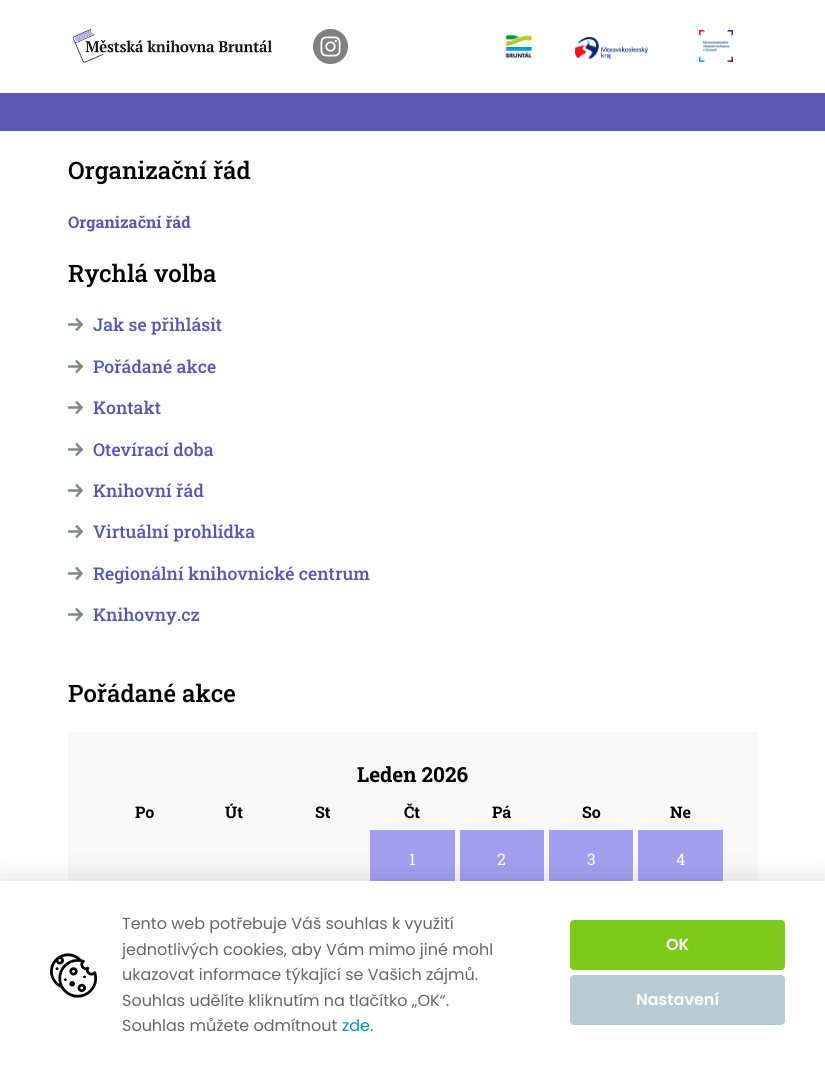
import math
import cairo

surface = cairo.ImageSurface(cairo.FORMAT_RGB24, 825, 1069)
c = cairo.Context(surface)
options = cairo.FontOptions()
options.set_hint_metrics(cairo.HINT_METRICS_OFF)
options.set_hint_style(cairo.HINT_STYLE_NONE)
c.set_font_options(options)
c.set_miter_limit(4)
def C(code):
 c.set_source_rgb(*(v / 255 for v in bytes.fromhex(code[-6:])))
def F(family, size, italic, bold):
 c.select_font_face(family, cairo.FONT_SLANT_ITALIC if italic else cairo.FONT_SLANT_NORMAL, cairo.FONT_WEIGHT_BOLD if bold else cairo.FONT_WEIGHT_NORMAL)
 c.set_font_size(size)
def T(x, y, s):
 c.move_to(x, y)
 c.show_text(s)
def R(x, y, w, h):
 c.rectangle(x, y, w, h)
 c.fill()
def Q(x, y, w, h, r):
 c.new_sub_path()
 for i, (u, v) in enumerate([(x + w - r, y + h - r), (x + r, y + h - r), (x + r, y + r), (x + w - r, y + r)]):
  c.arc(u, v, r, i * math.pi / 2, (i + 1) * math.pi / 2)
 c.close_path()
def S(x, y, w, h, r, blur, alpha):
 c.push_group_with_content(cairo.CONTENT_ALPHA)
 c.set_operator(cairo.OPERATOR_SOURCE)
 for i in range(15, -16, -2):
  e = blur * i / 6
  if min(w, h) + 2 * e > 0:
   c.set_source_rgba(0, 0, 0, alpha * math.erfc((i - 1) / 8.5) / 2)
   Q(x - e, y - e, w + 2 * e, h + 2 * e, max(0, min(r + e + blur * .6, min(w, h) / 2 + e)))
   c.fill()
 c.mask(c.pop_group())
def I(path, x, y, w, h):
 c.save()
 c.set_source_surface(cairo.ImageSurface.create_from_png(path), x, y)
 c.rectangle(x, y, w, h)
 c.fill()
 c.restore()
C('ffffff')
c.paint()
I('1.png',72,28,200,35)
I('2.png',313,29,35,35)
I('3.png',505,34,28,25)
I('4.png',575,37,73,22)
I('5.png',699,30,34,32)
C('5a56b4')
R(0,93,825,38)
F('Roboto Slab Medium',24,0,0)
C('000000')
T(68,179,'Organizační řád')
F('Roboto Slab',16,0,1)
C('5a56b4')
T(68,228,'Organizační řád')
F('Roboto Slab Medium',24,0,0)
C('000000')
T(68,282,'Rychlá volba')
I('6.png',68,318,15,13)
F('Roboto Slab Medium',17.6,0,0)
C('5a56b4')
T(93,331,'Jak se přihlásit')
I('6.png',68,360,15,13)
T(93,373,'Pořádané akce')
I('6.png',68,401,15,13)
T(93,414,'Kontakt')
I('6.png',68,443,15,13)
T(93,456,'Otevírací doba')
I('6.png',68,484,15,13)
T(93,497,'Knihovní řád')
I('6.png',68,525,15,13)
T(93,538,'Virtuální prohlídka')
I('6.png',68,567,15,13)
T(93,580,'Regionální knihovnické centrum')
I('6.png',68,608,15,13)
T(93,621,'Knihovny.cz')
F('Roboto Slab Medium',24,0,0)
C('000000')
T(68,702,'Pořádané akce')
C('f8f8f8')
R(68,732,690,149)
F('Roboto Slab',20.75,0,1)
C('000000')
T(357,782,'Leden 2026')
F('Roboto Slab',16,0,1)
T(135,818,'Po')
T(225,818,'Út')
T(315,818,'St')
T(404,818,'Čt')
T(492,818,'Pá')
T(582,818,'So')
T(670,818,'Ne')
C('a29fef')
R(370,830,85,51)
F('Roboto Slab',16,0,0)
C('ffffff')
T(409,865,'1')
C('a29fef')
R(460,830,84,51)
C('ffffff')
T(497,865,'2')
C('a29fef')
R(549,830,84,51)
C('ffffff')
T(587,865,'3')
C('a29fef')
R(638,830,85,51)
C('ffffff')
T(676,865,'4')
C('000000')
S(0,886,825,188,0,15,.21)
C('ffffff')
R(0,881,825,188)
I('7.png',50,953,47,45)
F('Poppins',16,0,0)
C('666666')
T(122,929,'Tento web potřebuje Váš souhlas k využití')
T(122,955,'jednotlivých cookies, aby Vám mimo jiné mohl')
T(122,980,'ukazovat informace týkající se Vašich zájmů.')
T(122,1006,'Souhlas udělíte kliknutím na tlačítko „OK“.')
T(122,1031,'Souhlas můžete odmítnout')
C('0092ca')
T(342,1031,'zde')
C('666666')
T(370,1031,'.')
C('7dca1a')
Q(570,920,215,50,4)
c.fill()
F('Poppins SemiBold',16,0,0)
C('ffffff')
T(666,950,'OK')
C('b8cbd2')
Q(570,975,215,50,4)
c.fill()
C('ffffff')
T(636,1005,'Nastavení')
surface.write_to_png('o.png')
